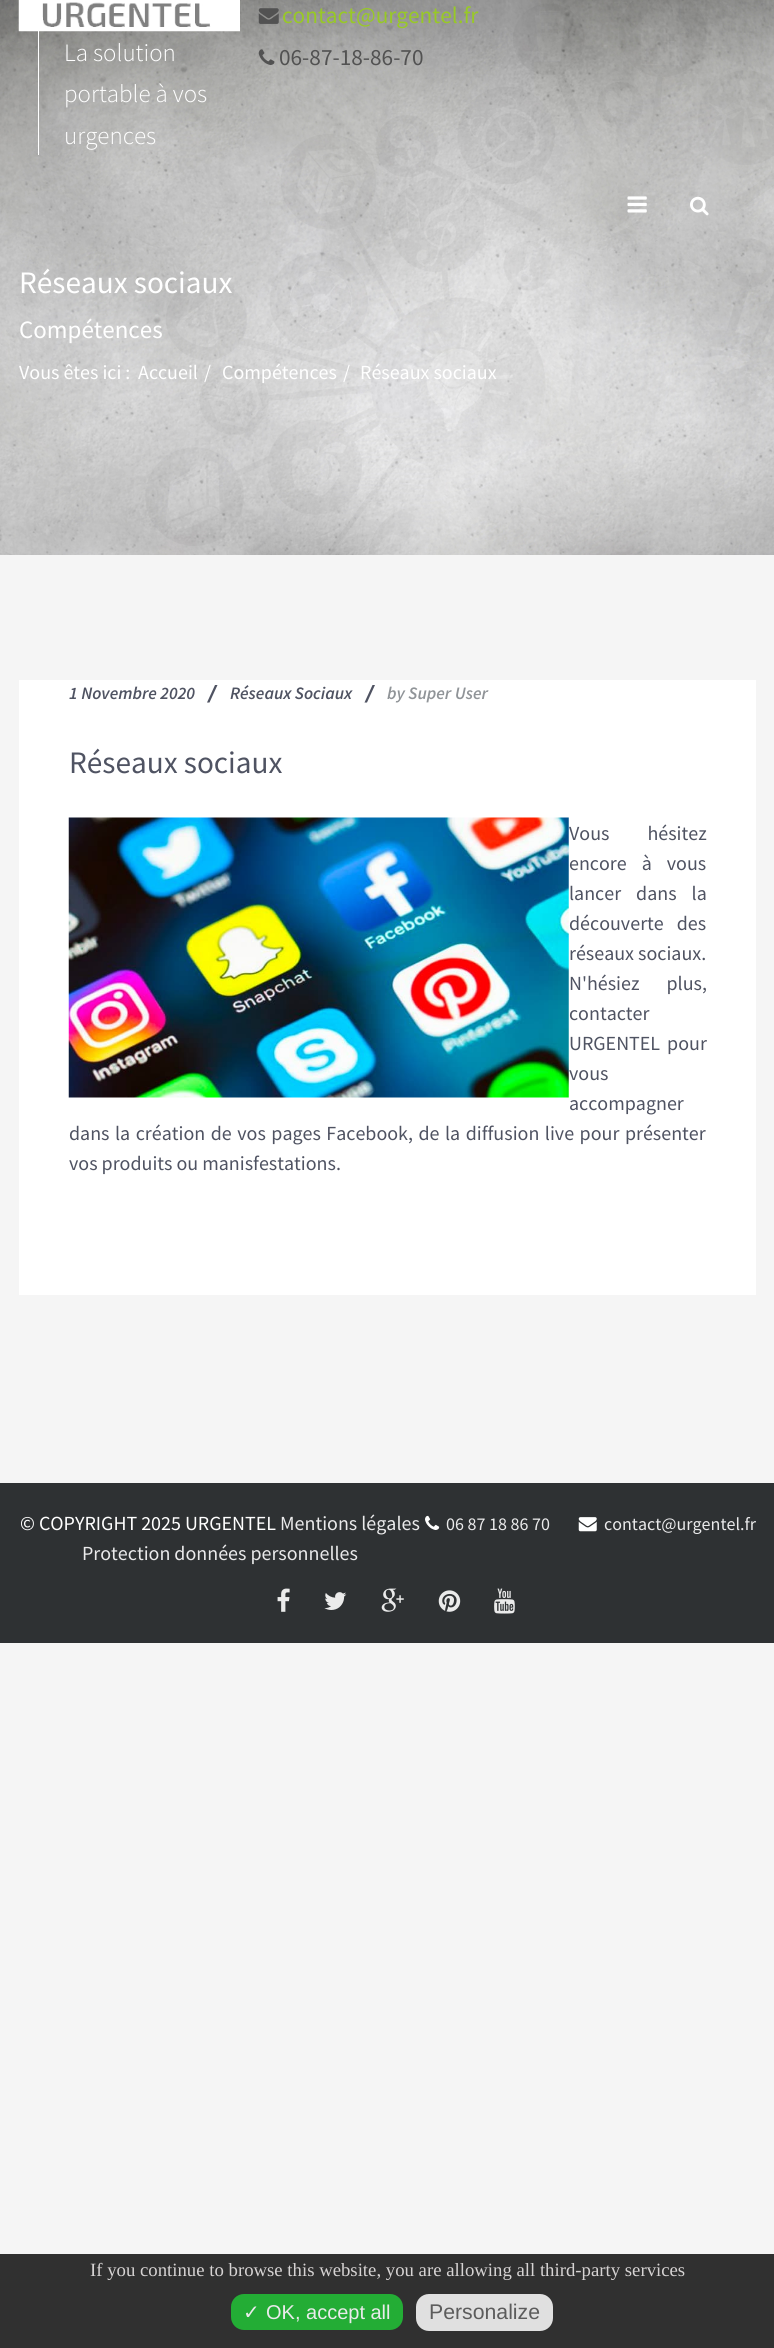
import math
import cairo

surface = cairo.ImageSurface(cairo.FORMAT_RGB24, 774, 2348)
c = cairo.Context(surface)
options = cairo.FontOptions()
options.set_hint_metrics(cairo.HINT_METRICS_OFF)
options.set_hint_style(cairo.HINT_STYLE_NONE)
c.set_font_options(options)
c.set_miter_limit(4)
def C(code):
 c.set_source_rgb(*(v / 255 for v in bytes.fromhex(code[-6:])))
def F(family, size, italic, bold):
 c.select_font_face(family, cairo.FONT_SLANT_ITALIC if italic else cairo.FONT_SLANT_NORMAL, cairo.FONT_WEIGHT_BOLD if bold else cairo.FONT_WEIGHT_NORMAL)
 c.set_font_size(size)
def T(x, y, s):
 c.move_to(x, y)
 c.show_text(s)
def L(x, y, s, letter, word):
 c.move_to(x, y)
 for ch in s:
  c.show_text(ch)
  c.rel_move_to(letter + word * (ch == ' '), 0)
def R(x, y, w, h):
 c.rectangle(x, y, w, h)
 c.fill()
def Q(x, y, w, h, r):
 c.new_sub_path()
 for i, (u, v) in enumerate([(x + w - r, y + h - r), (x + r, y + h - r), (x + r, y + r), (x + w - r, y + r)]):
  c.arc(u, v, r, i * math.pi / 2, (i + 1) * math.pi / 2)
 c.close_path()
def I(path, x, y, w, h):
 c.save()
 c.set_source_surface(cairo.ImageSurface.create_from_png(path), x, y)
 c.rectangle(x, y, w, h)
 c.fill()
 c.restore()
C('f5f5f5')
c.paint()
I('6.png',0,0,774,555)
I('1.png',258,8,21,16)
F('Source Sans Pro',23.25,0,0)
C('98c926')
T(282,23,'contact@urgentel.fr')
I('2.png',258,49,17,16)
C('525252')
T(279,65,'06-87-18-86-70')
I('3.png',18,0,222,32)
C('ffffff')
R(38,31,1,124)
F('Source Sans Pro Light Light',25,0,0)
T(64,61,'La solution')
T(64,102,'portable à vos')
T(64,144,'urgences')
I('4.png',627,196,20,17)
I('5.png',690,196,19,20)
F('Source Sans Pro',31.25,0,0)
T(19,293,'Réseaux sociaux')
F('Source Sans Pro',25,0,0)
T(19,338,'Compétences')
F('Source Sans Pro',20,0,0)
T(19,379,'Vous êtes ici :')
T(138,379,'Accueil')
T(204,379,'/')
T(222,379,'Compétences')
T(343,379,'/')
T(360,379,'Réseaux sociaux')
R(19,680,737,615)
F('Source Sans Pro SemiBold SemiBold',17.5,1,0)
C('4f5362')
T(69,699,'1 Novembre 2020')
c.new_path()
c.move_to(215,685)
c.line_to(217.5,685)
c.line_to(209.5,702.5)
c.line_to(207,702.5)
c.close_path()
c.fill()
T(230,699,'Réseaux Sociaux')
c.new_path()
c.move_to(372.5,685)
c.line_to(375,685)
c.line_to(367,702.5)
c.line_to(364.5,702.5)
c.close_path()
c.fill()
C('909498')
T(387,699,'by Super User')
F('Source Sans Pro',31.25,0,0)
C('4f5362')
T(69,773,'Réseaux sociaux')
I('7.png',68,817,501,281)
F('Source Sans Pro',20,0,0)
L(569,840,'Vous hésitez',0,34)
L(569,870,'encore à vous',0,11)
L(569,900,'lancer dans la',0,11)
L(569,930,'découverte des',0,9)
T(569,960,'réseaux sociaux.')
L(569,990,'N\'hésiez plus,',0,23)
T(569,1020,'contacter')
L(569,1050,'URGENTEL pour',0,3)
T(569,1080,'vous')
T(569,1110,'accompagner')
L(69,1140,'dans la création de vos pages Facebook, de la diffusion live pour présenter',0,1.5)
T(69,1170,'vos produits ou manisfestations.')
C('2e3133')
R(0,1483,774,160)
C('ffffff')
T(20,1530,'© COPYRIGHT 2025 URGENTEL')
C('eaeaeb')
T(280,1530,'Mentions légales')
T(82,1560,'Protection données personnelles')
I('8.png',425,1515,15,15)
F('Source Sans Pro',18,0,0)
T(446,1530,'06 87 18 86 70')
I('9.png',578,1517,19,15)
T(604,1530,'contact@urgentel.fr')
I('10.png',277,1588,13,24)
I('11.png',324,1592,23,18)
I('12.png',381,1588,23,24)
I('13.png',438,1590,23,22)
I('14.png',494,1588,21,26)
C('303030')
R(0,2254,774,94)
F('Liberation Serif',18.75,0,0)
C('d6d3d3')
T(90,2276,'If you continue to browse this website, you are allowing all third-party services')
C('23ad35')
Q(231,2294,172,36,13)
c.fill()
F('DejaVu Sans',20,0,0)
C('eaeaeb')
T(243,2319,'✓')
F('Liberation Sans',20,0,0)
T(266,2319,'OK, accept all')
C('e0e0e0')
Q(416,2294,137,37,13)
c.fill()
F('Liberation Sans',21.25,0,0)
C('5c5c5c')
T(429,2319,'Personalize')
surface.write_to_png('o.png')
